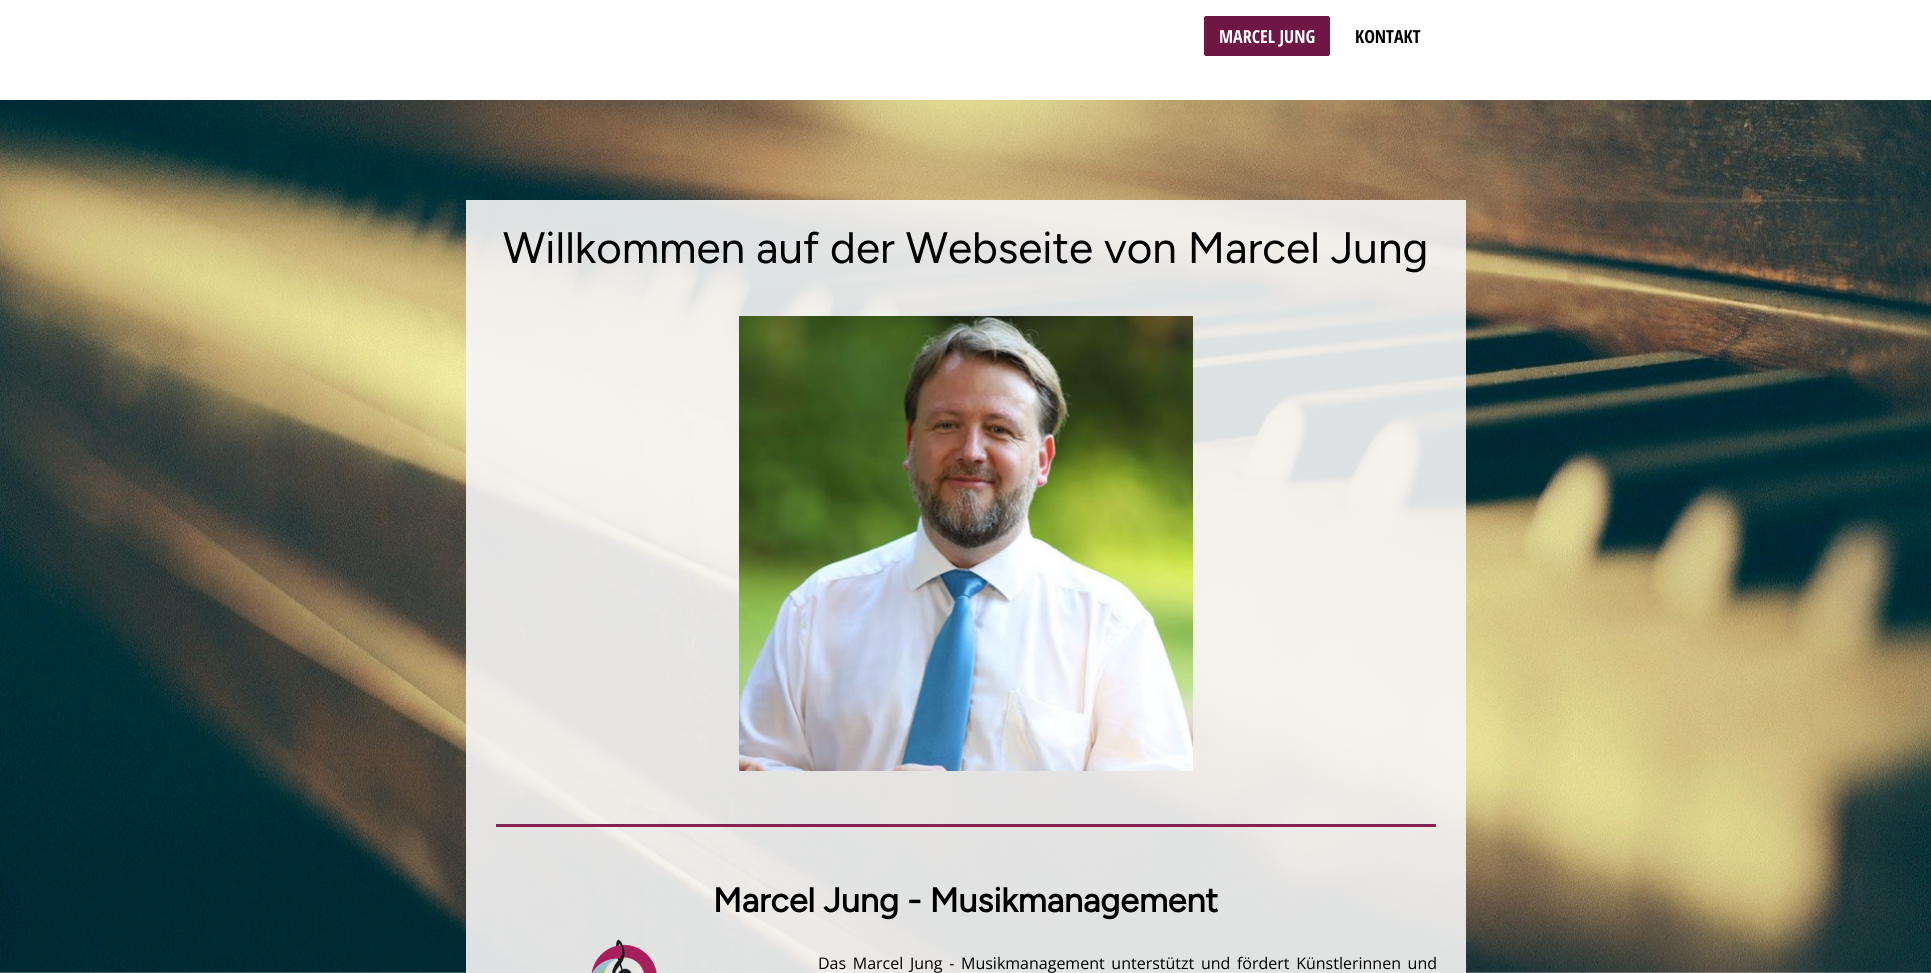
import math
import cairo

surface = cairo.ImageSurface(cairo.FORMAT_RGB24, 1931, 973)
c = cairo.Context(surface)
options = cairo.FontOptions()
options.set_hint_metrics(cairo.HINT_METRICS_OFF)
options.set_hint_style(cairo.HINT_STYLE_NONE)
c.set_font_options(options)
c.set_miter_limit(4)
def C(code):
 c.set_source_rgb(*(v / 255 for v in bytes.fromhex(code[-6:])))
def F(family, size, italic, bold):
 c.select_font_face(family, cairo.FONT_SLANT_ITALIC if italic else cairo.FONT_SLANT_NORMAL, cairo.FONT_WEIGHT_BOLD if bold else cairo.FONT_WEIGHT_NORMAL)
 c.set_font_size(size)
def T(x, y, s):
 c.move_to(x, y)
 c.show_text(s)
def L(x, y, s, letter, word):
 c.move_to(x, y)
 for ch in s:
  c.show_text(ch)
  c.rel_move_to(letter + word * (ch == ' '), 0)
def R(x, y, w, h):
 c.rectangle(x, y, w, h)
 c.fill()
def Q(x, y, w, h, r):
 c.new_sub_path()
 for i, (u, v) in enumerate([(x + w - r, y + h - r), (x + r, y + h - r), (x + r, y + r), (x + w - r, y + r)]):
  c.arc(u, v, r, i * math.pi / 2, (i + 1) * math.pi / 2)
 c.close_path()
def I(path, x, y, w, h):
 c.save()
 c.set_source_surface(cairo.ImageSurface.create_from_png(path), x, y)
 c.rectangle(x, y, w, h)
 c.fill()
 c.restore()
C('ffffff')
c.paint()
C('6f1645')
Q(1204,16,126,40,2)
c.fill()
F('Open Sans Condensed',18,0,1)
C('ffffff')
T(1219,43,'MARCEL JUNG')
C('000000')
T(1355,43,'KONTAKT')
I('1.png',0,100,1931,873)
c.set_source_rgba(0.961,0.961,0.961,0.9)
R(466,200,1000,773)
F('Figtree Light',44,0,0)
C('000000')
T(503,263,'Willkommen auf der Webseite von Marcel Jung')
I('2.png',739,316,454,455)
C('842153')
R(496,824,940,3)
F('Figtree',34,0,1)
C('000000')
T(713,912,'Marcel Jung - Musikmanagement')
I('3.png',591,939,66,34)
F('Open Sans',16,0,0)
L(818,969,'Das Marcel Jung - Musikmanagement unterstützt und fördert Künstlerinnen und',0,2.5)
surface.write_to_png('o.png')
